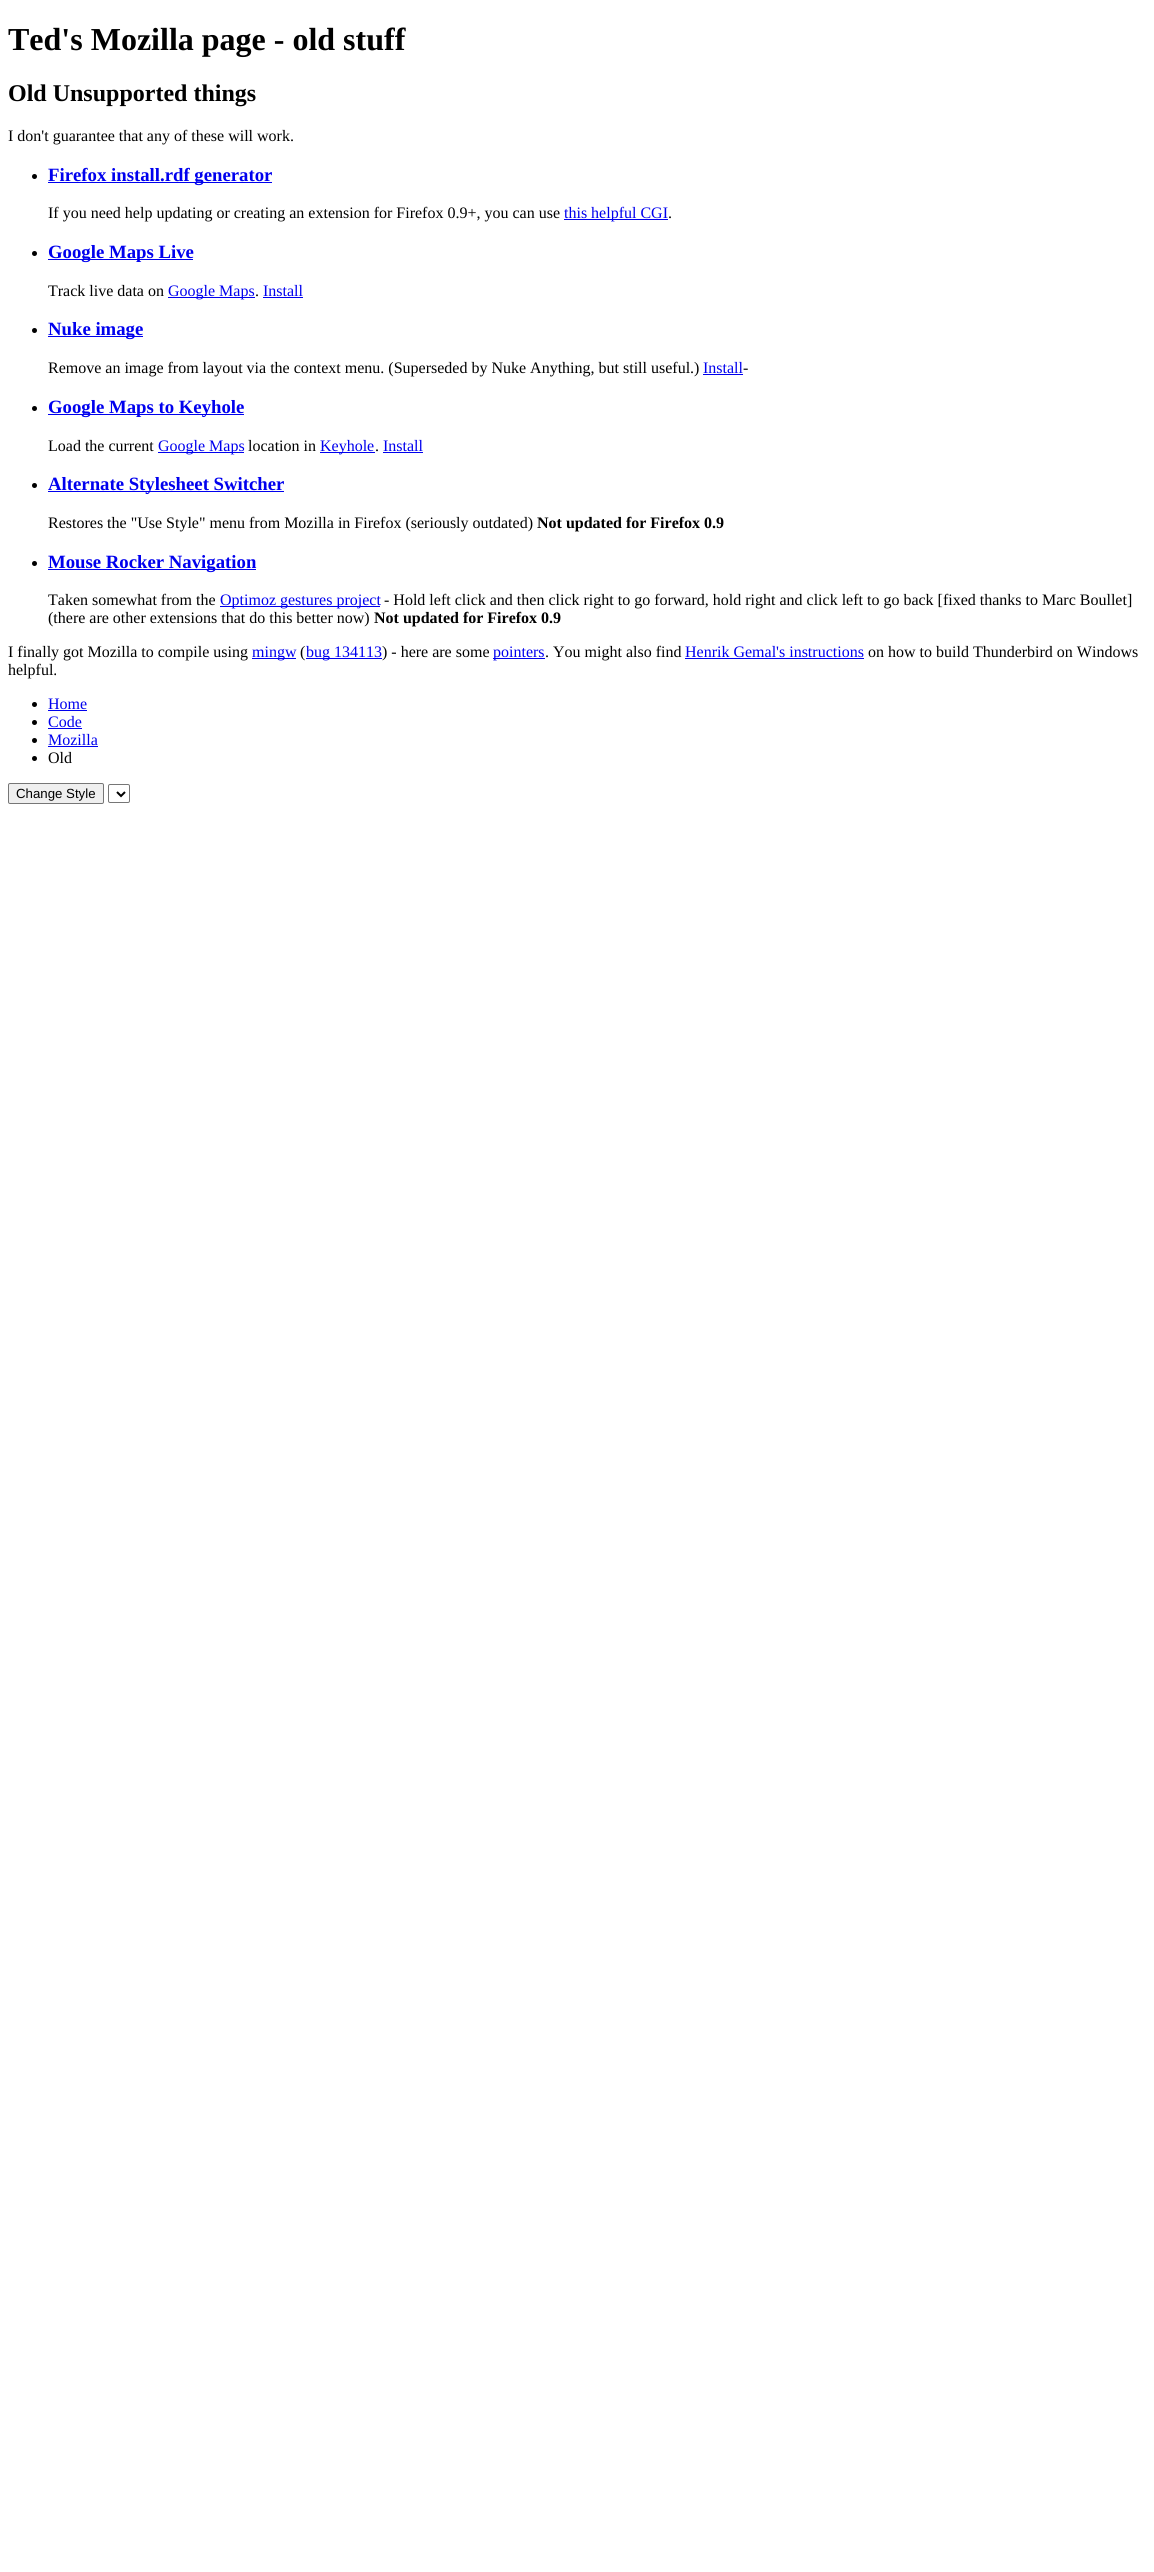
import math
import cairo

surface = cairo.ImageSurface(cairo.FORMAT_RGB24, 1154, 2572)
c = cairo.Context(surface)
options = cairo.FontOptions()
options.set_hint_metrics(cairo.HINT_METRICS_OFF)
options.set_hint_style(cairo.HINT_STYLE_NONE)
c.set_font_options(options)
c.set_miter_limit(4)
def C(code):
 c.set_source_rgb(*(v / 255 for v in bytes.fromhex(code[-6:])))
def F(family, size, italic, bold):
 c.select_font_face(family, cairo.FONT_SLANT_ITALIC if italic else cairo.FONT_SLANT_NORMAL, cairo.FONT_WEIGHT_BOLD if bold else cairo.FONT_WEIGHT_NORMAL)
 c.set_font_size(size)
def T(x, y, s):
 c.move_to(x, y)
 c.show_text(s)
def R(x, y, w, h):
 c.rectangle(x, y, w, h)
 c.fill()
def Q(x, y, w, h, r):
 c.new_sub_path()
 for i, (u, v) in enumerate([(x + w - r, y + h - r), (x + r, y + h - r), (x + r, y + r), (x + w - r, y + r)]):
  c.arc(u, v, r, i * math.pi / 2, (i + 1) * math.pi / 2)
 c.close_path()
C('ffffff')
c.paint()
F('Liberation Serif',32,0,1)
C('000000')
T(8,50,'Ted\'s Mozilla page - old stuff')
F('Liberation Serif',24,0,1)
T(8,101,'Old Unsupported things')
F('Liberation Serif',16,0,0)
T(8,141,'I don\'t guarantee that any of these will work.')
c.new_path()
c.arc(34.5,176.5,2.5,0,2 * math.pi)
c.fill()
C('0000ee')
R(48,182,224,1)
F('Liberation Serif',18.75,0,1)
T(48,181,'Firefox install.rdf generator')
F('Liberation Serif',16,0,0)
C('000000')
T(48,218,'If you need help updating or creating an extension for Firefox 0.9+, you can use')
C('0000ee')
R(564,219,104,1)
T(564,218,'this helpful CGI')
C('000000')
T(668,218,'.')
c.new_path()
c.arc(34.5,253.5,2.5,0,2 * math.pi)
c.fill()
C('0000ee')
R(48,259,145,1)
F('Liberation Serif',18.75,0,1)
T(48,258,'Google Maps Live')
F('Liberation Serif',16,0,0)
C('000000')
T(48,296,'Track live data on')
C('0000ee')
R(168,297,87,1)
T(168,296,'Google Maps')
C('000000')
T(255,296,'.')
C('0000ee')
T(263,296,'Install')
R(263,297,40,1)
C('000000')
c.new_path()
c.arc(34.5,330.5,2.5,0,2 * math.pi)
c.fill()
C('0000ee')
R(48,336,95,1)
F('Liberation Serif',18.75,0,1)
T(48,335,'Nuke image')
F('Liberation Serif',16,0,0)
C('000000')
T(48,373,'Remove an image from layout via the context menu. (Superseded by Nuke Anything, but still useful.)')
C('0000ee')
T(703,373,'Install')
R(703,374,40,1)
C('000000')
T(743,373,'-')
c.new_path()
c.arc(34.5,408.5,2.5,0,2 * math.pi)
c.fill()
C('0000ee')
R(48,414,196,1)
F('Liberation Serif',18.75,0,1)
T(48,413,'Google Maps to Keyhole')
F('Liberation Serif',16,0,0)
C('000000')
T(48,451,'Load the current')
C('0000ee')
R(158,452,86,1)
T(158,451,'Google Maps')
C('000000')
T(248,451,'location in')
C('0000ee')
R(320,452,55,1)
T(320,451,'Keyhole')
C('000000')
T(375,451,'.')
C('0000ee')
T(383,451,'Install')
R(383,452,40,1)
C('000000')
c.new_path()
c.arc(34.5,485.5,2.5,0,2 * math.pi)
c.fill()
C('0000ee')
R(48,491,236,1)
F('Liberation Serif',18.75,0,1)
T(48,490,'Alternate Stylesheet Switcher')
F('Liberation Serif',16,0,0)
C('000000')
T(48,528,'Restores the "Use Style" menu from Mozilla in Firefox (seriously outdated)')
F('Liberation Serif',16,0,1)
T(537,528,'Not updated for Firefox 0.9')
c.new_path()
c.arc(34.5,563.5,2.5,0,2 * math.pi)
c.fill()
C('0000ee')
R(48,569,208,1)
F('Liberation Serif',18.75,0,1)
T(48,568,'Mouse Rocker Navigation')
F('Liberation Serif',16,0,0)
C('000000')
T(48,605,'Taken somewhat from the')
C('0000ee')
R(220,606,160,1)
T(220,605,'Optimoz gestures project')
C('000000')
T(384,605,'- Hold left click and then click right to go forward, hold right and click left to go back [fixed thanks to Marc Boullet]')
T(48,623,'(there are other extensions that do this better now)')
F('Liberation Serif',16,0,1)
T(374,623,'Not updated for Firefox 0.9')
F('Liberation Serif',16,0,0)
T(8,657,'I finally got Mozilla to compile using')
C('0000ee')
R(252,658,44,1)
T(252,657,'mingw')
C('000000')
T(300,657,'(')
C('0000ee')
R(306,658,76,1)
T(306,657,'bug 134113')
C('000000')
T(382,657,') - here are some')
C('0000ee')
R(493,658,52,1)
T(493,657,'pointers')
C('000000')
T(545,657,'. You might also find')
C('0000ee')
T(685,657,'Henrik Gemal\'s instructions')
R(685,658,179,1)
C('000000')
T(868,657,'on how to build Thunderbird on Windows')
T(8,675,'helpful.')
c.new_path()
c.arc(34.5,704.5,2.5,0,2 * math.pi)
c.fill()
C('0000ee')
T(48,709,'Home')
R(48,710,39,1)
C('000000')
c.new_path()
c.arc(34.5,722.5,2.5,0,2 * math.pi)
c.fill()
C('0000ee')
T(48,727,'Code')
R(48,728,34,1)
C('000000')
c.new_path()
c.arc(34.5,740.5,2.5,0,2 * math.pi)
c.fill()
C('0000ee')
T(48,745,'Mozilla')
R(48,746,50,1)
C('000000')
c.new_path()
c.arc(34.5,758.5,2.5,0,2 * math.pi)
c.fill()
T(48,763,'Old')
C('efefef')
Q(8.5,783.5,95,20,1.5)
c.fill_preserve()
C('767676')
c.set_line_width(1)
c.stroke()
F('Liberation Sans',13.25,0,0)
C('000000')
T(16,798,'Change Style')
Q(108.5,784.5,21,18,1.5)
C('767676')
c.stroke()
c.new_path()
c.move_to(117,792)
c.line_to(121,796)
c.line_to(125,792)
C('000000')
c.set_line_width(2)
c.stroke()
surface.write_to_png('o.png')
